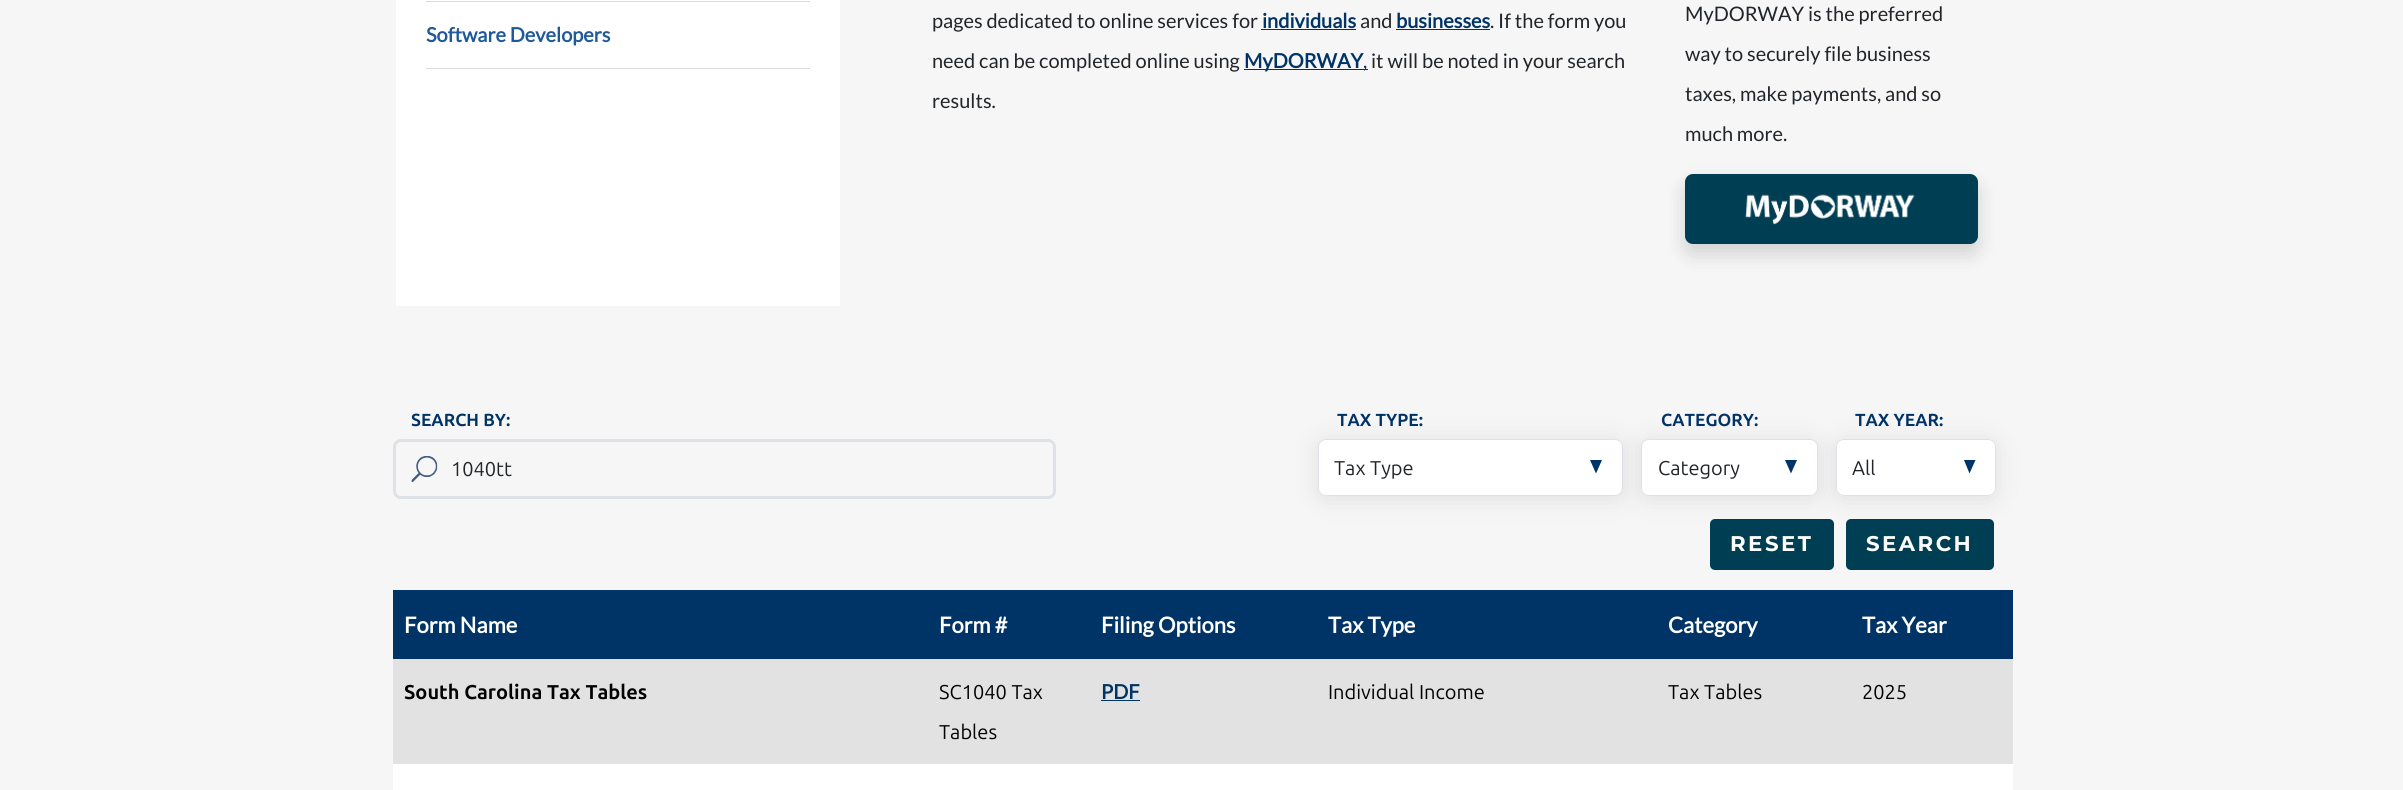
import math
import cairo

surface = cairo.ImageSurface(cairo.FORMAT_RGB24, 2403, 790)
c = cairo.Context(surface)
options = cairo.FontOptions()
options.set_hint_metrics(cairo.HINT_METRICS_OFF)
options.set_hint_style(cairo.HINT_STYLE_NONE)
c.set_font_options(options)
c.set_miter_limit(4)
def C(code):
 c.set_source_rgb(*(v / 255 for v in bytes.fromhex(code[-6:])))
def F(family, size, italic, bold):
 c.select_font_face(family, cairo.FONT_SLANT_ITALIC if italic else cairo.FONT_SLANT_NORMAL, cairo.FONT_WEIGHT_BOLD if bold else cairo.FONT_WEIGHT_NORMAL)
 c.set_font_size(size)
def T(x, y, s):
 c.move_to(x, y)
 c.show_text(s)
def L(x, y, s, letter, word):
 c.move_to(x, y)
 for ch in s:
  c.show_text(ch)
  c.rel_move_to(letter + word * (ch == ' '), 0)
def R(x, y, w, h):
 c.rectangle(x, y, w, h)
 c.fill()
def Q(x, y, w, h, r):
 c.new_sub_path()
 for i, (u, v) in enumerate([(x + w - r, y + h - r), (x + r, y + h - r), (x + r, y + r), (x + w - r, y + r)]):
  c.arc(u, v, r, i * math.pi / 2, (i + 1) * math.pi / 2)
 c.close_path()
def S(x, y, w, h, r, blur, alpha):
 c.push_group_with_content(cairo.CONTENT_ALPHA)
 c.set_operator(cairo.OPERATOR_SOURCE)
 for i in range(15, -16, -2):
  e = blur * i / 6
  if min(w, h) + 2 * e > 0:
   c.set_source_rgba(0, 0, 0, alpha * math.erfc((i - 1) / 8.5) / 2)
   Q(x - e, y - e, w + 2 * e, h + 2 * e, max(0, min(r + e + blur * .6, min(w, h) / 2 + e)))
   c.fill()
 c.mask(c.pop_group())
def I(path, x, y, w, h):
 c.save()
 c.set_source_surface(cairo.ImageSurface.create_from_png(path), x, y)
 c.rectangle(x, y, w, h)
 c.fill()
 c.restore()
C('f6f6f6')
c.paint()
C('ffffff')
R(396,0,444,306)
C('dbdbdb')
R(426,1,384,1)
R(426,68,384,1)
F('Lato',20,0,1)
C('1f5999')
T(426,42,'Software Developers')
F('Lato',20,0,0)
C('212529')
T(932,28,'pages dedicated to online services for')
F('Lato',20,0,1)
C('003366')
T(1262,28,'individuals')
R(1261,29,95,1)
F('Lato',20,0,0)
C('212529')
T(1360,28,'and')
F('Lato',20,0,1)
C('003366')
T(1396,28,'businesses')
R(1396,29,94,1)
F('Lato',20,0,0)
C('212529')
T(1490,28,'. If the form you')
T(932,68,'need can be completed online using')
C('003366')
R(1244,69,124,1)
F('Lato',20,0,1)
T(1244,68,'MyDORWAY')
F('Lato',20,0,0)
T(1363,68,',')
C('212529')
T(1371,68,'it will be noted in your search')
T(932,108,'results.')
T(1685,21,'MyDORWAY is the preferred')
T(1685,61,'way to securely file business')
T(1685,101,'taxes, make payments, and so')
T(1685,141,'much more.')
C('000000')
S(1685,184,293,70,8,10,.15)
C('003e53')
Q(1685,174,293,70,8)
c.fill()
I('1.png',1745,194,170,31)
F('Ubuntu',17.5,0,1)
C('003366')
T(411,426,'SEARCH BY:')
Q(394.5,440.5,660,57,6.5)
C('dee2e6')
c.set_line_width(3)
c.stroke()
I('2.png',411,456,27,26)
F('Ubuntu',20,0,0)
C('212529')
T(451,476,'1040tt')
C('000000')
S(1318,441,305,58,8,12.5,.09)
F('Ubuntu',17.5,0,1)
C('003366')
T(1337,426,'TAX TYPE:')
C('ffffff')
Q(1318,439,305,57,8)
c.fill()
C('003366')
c.new_path()
c.move_to(1590,460)
c.line_to(1596,473.5)
c.line_to(1602,460)
c.close_path()
c.fill()
Q(1318.5,439.5,304,56,7.5)
C('dee2e6')
c.set_line_width(1)
c.stroke()
F('Ubuntu',20,0,0)
C('212529')
T(1334,475,'Tax Type')
C('000000')
S(1641,441,177,58,8,12.5,.09)
F('Ubuntu',17.5,0,1)
C('003366')
T(1661,426,'CATEGORY:')
C('ffffff')
Q(1641,439,177,57,8)
c.fill()
C('003366')
c.new_path()
c.move_to(1785,460)
c.line_to(1791,473.5)
c.line_to(1797,460)
c.close_path()
c.fill()
Q(1641.5,439.5,176,56,7.5)
C('dee2e6')
c.stroke()
F('Ubuntu',20,0,0)
C('212529')
T(1658,475,'Category')
C('000000')
S(1836,441,160,58,8,12.5,.09)
F('Ubuntu',17.5,0,1)
C('003366')
T(1855,426,'TAX YEAR:')
C('ffffff')
Q(1836,439,160,57,8)
c.fill()
C('003366')
c.new_path()
c.move_to(1964,460)
c.line_to(1969.5,473.5)
c.line_to(1975.5,460)
c.close_path()
c.fill()
Q(1836.5,439.5,159,56,7.5)
C('dee2e6')
c.stroke()
F('Ubuntu',20,0,0)
C('212529')
T(1852,475,'All')
C('003e53')
Q(1710,519,124,51,5)
c.fill()
F('Montserrat',21.25,0,1)
C('ffffff')
L(1730,551,'RESET',2.5,0)
C('003e53')
Q(1846,519,148,51,5)
c.fill()
C('ffffff')
L(1866,551,'SEARCH',2.5,0)
C('003366')
R(393,590,1620,69)
F('Lato',22,0,1)
C('ffffff')
T(404,633,'Form Name')
T(939,633,'Form #')
T(1101,633,'Filing Options')
T(1328,633,'Tax Type')
T(1668,633,'Category')
T(1862,633,'Tax Year')
C('e2e2e2')
R(393,659,1620,105)
F('Ubuntu',20,0,1)
C('000000')
T(404,699,'South Carolina Tax Tables')
F('Ubuntu',20,0,0)
T(939,699,'SC1040 Tax')
T(939,739,'Tables')
F('Lato',20,0,1)
C('003366')
T(1101,699,'PDF')
R(1101,700,39,1)
F('Ubuntu',20,0,0)
C('000000')
T(1328,699,'Individual Income')
T(1668,699,'Tax Tables')
T(1862,699,'2025')
C('ffffff')
R(393,764,1620,26)
surface.write_to_png('o.png')
